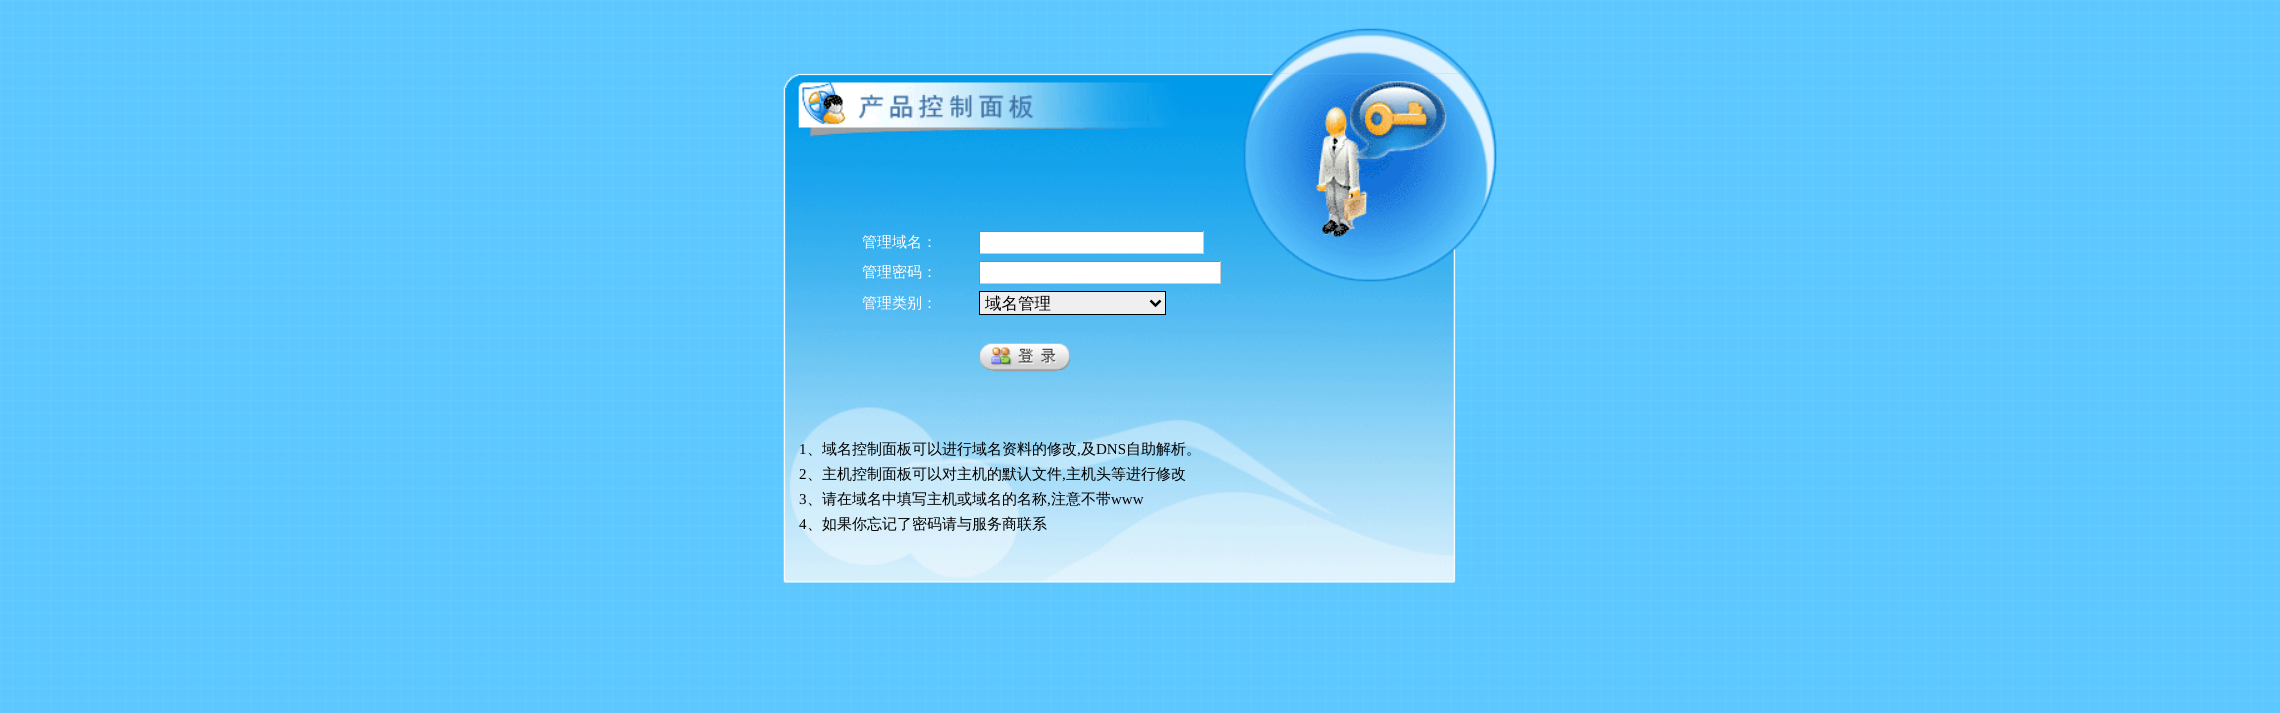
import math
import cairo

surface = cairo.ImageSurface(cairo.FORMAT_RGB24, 2280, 713)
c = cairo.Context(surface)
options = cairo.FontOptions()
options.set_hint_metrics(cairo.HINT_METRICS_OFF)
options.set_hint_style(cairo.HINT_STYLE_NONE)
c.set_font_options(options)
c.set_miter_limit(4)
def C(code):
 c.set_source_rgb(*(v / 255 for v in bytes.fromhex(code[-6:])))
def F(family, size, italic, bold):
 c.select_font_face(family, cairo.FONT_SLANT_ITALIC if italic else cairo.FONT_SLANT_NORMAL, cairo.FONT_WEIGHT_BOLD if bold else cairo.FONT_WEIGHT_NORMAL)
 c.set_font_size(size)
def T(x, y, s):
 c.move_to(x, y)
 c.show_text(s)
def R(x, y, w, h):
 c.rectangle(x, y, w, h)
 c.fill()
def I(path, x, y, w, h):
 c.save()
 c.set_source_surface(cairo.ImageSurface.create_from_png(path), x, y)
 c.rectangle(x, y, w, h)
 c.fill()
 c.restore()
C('ffffff')
c.paint()
I('1.png',0,0,2280,713)
I('3.png',783,73,715,510)
I('2.png',784,0,714,74)
F('WenQuanYi Zen Hei Medium',15,0,0)
C('ffffff')
T(862,247,'管理域名：')
R(980,232,223,21)
C('888888')
R(979,231,225,1)
C('cccccc')
R(1203,231,1,23)
R(979,253,225,1)
C('888888')
R(979,231,1,23)
C('ffffff')
T(862,277,'管理密码：')
R(980,262,240,21)
C('888888')
R(979,261,242,1)
C('cccccc')
R(1220,261,1,23)
R(979,283,242,1)
C('888888')
R(979,261,1,23)
C('ffffff')
T(862,308,'管理类别：')
C('efefef')
c.rectangle(979.5,291.5,186,23)
c.fill_preserve()
C('000000')
c.set_line_width(1)
c.stroke()
c.new_path()
c.move_to(1150.5,300.5)
c.line_to(1155.5,305.5)
c.line_to(1160.5,300.5)
c.set_line_width(2.5)
c.stroke()
F('WenQuanYi Zen Hei Medium',16.5,0,0)
T(985,309,'域名管理')
I('4.png',980,343,90,29)
F('Liberation Serif',15,0,0)
T(799,454,'1')
F('WenQuanYi Zen Hei Medium',15,0,0)
T(807,454,'、域名控制面板可以进行域名资料的修改')
F('Liberation Serif',15,0,0)
T(1077,454,',')
F('WenQuanYi Zen Hei Medium',15,0,0)
T(1081,454,'及')
F('Liberation Serif',15,0,0)
T(1096,454,'DNS')
F('WenQuanYi Zen Hei Medium',15,0,0)
T(1126,454,'自助解析。')
F('Liberation Serif',15,0,0)
T(799,479,'2')
F('WenQuanYi Zen Hei Medium',15,0,0)
T(807,479,'、主机控制面板可以对主机的默认文件')
T(1066,479,'主机头等进行修改')
F('Liberation Serif',15,0,0)
T(1062,479,',')
T(799,504,'3')
F('WenQuanYi Zen Hei Medium',15,0,0)
T(807,504,'、请在域名中填写主机或域名的名称')
F('Liberation Serif',15,0,0)
T(1047,504,',')
F('WenQuanYi Zen Hei Medium',15,0,0)
T(1051,504,'注意不带')
F('Liberation Serif',15,0,0)
T(1111,504,'www')
T(799,529,'4')
F('WenQuanYi Zen Hei Medium',15,0,0)
T(807,529,'、如果你忘记了密码请与服务商联系')
surface.write_to_png('o.png')
